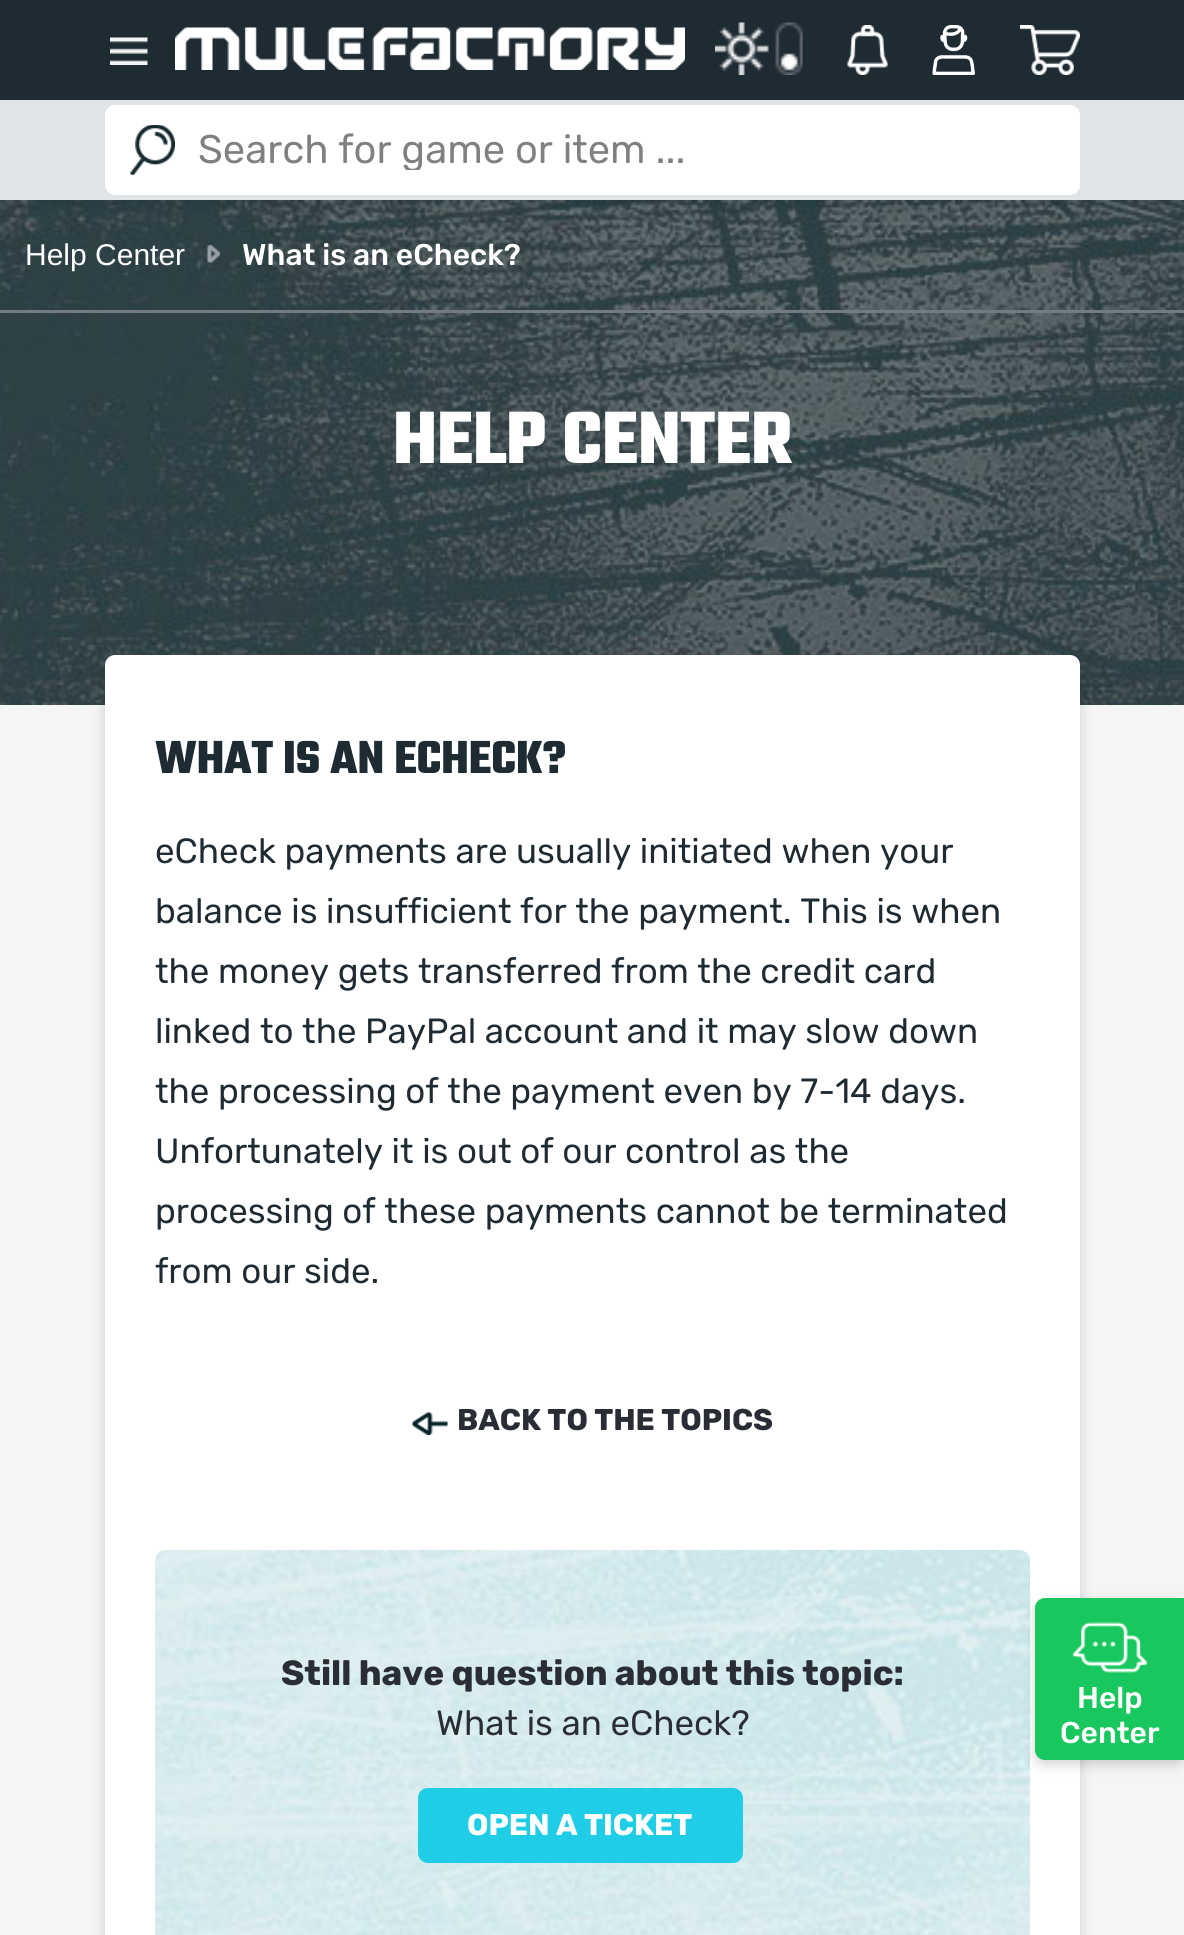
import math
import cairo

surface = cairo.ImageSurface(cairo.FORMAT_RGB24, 1184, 1935)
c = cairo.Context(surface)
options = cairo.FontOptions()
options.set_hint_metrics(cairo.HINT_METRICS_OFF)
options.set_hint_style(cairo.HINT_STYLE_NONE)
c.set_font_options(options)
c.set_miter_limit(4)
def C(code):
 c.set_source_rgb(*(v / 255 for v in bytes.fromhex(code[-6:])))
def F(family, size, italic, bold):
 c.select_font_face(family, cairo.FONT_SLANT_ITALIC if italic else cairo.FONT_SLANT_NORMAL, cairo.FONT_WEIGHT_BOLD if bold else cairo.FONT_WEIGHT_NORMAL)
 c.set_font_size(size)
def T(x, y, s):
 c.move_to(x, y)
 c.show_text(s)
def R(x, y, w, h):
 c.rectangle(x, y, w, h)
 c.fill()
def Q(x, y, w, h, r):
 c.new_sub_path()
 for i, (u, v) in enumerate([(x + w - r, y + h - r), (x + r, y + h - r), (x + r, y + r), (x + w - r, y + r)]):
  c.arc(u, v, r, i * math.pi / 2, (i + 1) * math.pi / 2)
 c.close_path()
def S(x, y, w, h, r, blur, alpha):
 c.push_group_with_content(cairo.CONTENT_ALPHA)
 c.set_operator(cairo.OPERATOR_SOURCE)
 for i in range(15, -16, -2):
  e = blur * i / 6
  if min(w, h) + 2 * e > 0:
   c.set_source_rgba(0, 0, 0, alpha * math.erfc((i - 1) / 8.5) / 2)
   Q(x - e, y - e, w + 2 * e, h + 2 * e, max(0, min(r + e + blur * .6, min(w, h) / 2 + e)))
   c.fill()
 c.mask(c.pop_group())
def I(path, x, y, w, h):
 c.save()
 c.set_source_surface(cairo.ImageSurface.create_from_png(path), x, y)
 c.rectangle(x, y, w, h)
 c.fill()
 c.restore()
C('f5f5f5')
c.paint()
C('1f2b33')
R(0,0,1184,100)
I('1.png',110,37,38,28)
I('2.png',175,27,510,43)
I('3.png',715,22,88,53)
I('4.png',847,25,41,50)
I('5.png',932,25,43,50)
I('6.png',1020,25,60,50)
C('e0e4e7')
R(0,100,1184,100)
C('ffffff')
Q(105,105,975,90,10)
c.fill()
I('7.png',130,125,45,50)
c.save()
c.rectangle(198,130,832,40)
c.clip()
F('Rubik',40,0,0)
C('808080')
T(198,163,'Search for game or item ...')
c.restore()
I('8.png',0,200,1184,505)
C('757c81')
R(0,310,1184,3)
F('Liberation Sans',30,0,0)
C('ffffff')
T(25,265,'Help Center')
I('9.png',207,245,13,18)
F('Rubik Medium',30,0,0)
T(242,265,'What is an eCheck?')
F('Teko',80,0,1)
T(393,463,'HELP CENTER')
C('1f2b33')
S(105,660,975,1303,10,6,.2)
C('ffffff')
Q(105,655,975,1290,10)
c.fill()
F('Teko',50,0,1)
C('1f2b33')
T(155,773,'WHAT IS AN ECHECK?')
F('Rubik',35,0,0)
T(155,863,'eCheck payments are usually initiated when your')
T(155,923,'balance is insufficient for the payment. This is when')
T(155,983,'the money gets transferred from the credit card')
T(155,1043,'linked to the PayPal account and it may slow down')
T(155,1103,'the processing of the payment even by 7-14 days.')
T(155,1163,'Unfortunately it is out of our control as the')
T(155,1223,'processing of these payments cannot be terminated')
T(155,1283,'from our side.')
I('10.png',412,1412,36,23)
F('Rubik',30,0,1)
C('2a2d35')
T(457,1430,'BACK TO THE TOPICS')
I('11.png',155,1550,875,385)
F('Rubik',35,0,1)
T(281,1685,'Still have question about this topic:')
F('Rubik',35,0,0)
T(436,1735,'What is an eCheck?')
C('20cde7')
Q(418,1788,325,75,10)
c.fill()
F('Rubik',30,0,1)
C('ffffff')
T(467,1835,'OPEN A TICKET')
C('1f2b33')
S(1035,1603,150,162,10,6,.2)
C('18c75d')
c.new_path()
c.move_to(1045,1598)
c.line_to(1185,1598)
c.line_to(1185,1760)
c.line_to(1045,1760)
c.curve_to(1039.5,1760,1035,1755.5,1035,1750)
c.line_to(1035,1608)
c.curve_to(1035,1602.5,1039.5,1598,1045,1598)
c.close_path()
c.fill()
I('12.png',1072,1622,76,51)
F('Rubik Medium',30,0,0)
C('ffffff')
T(1077,1708,'Help')
T(1060,1743,'Center')
surface.write_to_png('o.png')
